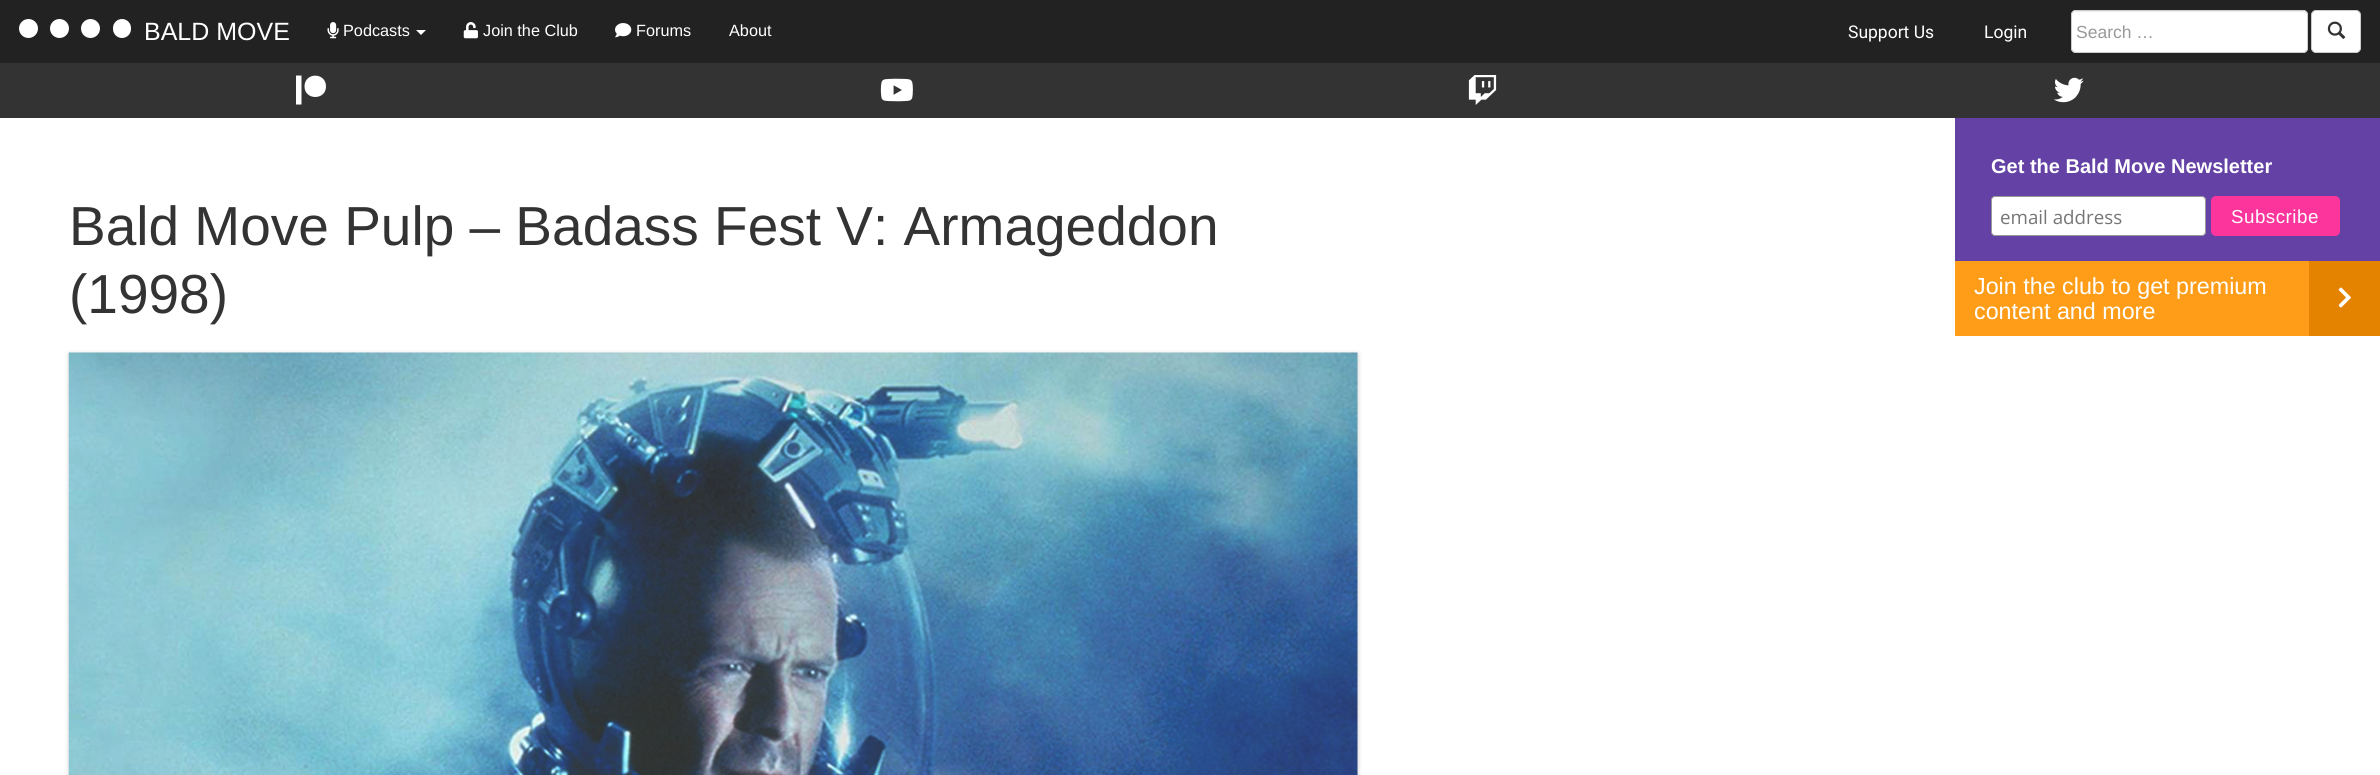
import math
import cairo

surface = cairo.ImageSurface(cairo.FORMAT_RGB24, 2380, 775)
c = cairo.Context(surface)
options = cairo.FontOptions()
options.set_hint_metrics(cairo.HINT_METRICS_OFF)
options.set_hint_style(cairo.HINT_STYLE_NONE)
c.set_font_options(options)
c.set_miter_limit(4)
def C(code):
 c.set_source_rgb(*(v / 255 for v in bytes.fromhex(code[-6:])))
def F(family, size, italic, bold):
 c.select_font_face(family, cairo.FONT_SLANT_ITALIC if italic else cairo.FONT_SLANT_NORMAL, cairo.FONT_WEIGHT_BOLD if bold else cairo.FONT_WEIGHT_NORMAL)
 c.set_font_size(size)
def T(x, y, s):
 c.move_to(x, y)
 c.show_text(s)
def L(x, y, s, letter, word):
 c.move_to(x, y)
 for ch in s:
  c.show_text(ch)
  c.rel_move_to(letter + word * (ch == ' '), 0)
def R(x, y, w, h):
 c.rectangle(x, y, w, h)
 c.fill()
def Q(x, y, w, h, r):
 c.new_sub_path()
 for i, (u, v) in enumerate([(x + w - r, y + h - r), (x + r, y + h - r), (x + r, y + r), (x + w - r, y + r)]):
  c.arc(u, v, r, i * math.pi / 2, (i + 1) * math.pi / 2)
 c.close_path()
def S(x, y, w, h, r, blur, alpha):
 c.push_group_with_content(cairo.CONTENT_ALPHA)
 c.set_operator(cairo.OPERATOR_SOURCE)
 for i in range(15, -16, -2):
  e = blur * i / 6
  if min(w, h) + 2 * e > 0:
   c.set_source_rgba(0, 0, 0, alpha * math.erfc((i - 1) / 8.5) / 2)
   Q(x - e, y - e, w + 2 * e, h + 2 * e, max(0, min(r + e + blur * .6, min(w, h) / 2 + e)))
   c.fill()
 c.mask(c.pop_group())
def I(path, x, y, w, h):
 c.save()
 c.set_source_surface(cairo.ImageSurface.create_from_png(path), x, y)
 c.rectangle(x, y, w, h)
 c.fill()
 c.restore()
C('333333')
c.paint()
C('222222')
R(0,0,2380,63)
C('ffffff')
c.arc(28.5,28.5,9.5,0,2 * math.pi)
c.fill()
c.arc(59.5,28.5,9.5,0,2 * math.pi)
c.fill()
c.arc(90.5,28.5,9.5,0,2 * math.pi)
c.fill()
Q(113,19,18,19,9)
c.fill()
F('Liberation Sans',25,0,0)
T(144,40,'BALD MOVE')
I('1.png',327,22,12,17)
F('Liberation Sans',16.25,0,0)
T(343,36,'Podcasts')
c.new_path()
c.move_to(416,30)
c.line_to(426,30)
c.line_to(421,35)
c.close_path()
c.fill()
I('2.png',463,22,15,17)
T(483,36,'Join the Club')
I('3.png',615,23,17,15)
T(636,36,'Forums')
T(729,36,'About')
F('Roboto',17.5,0,0)
T(1848,38,'Support Us')
T(1984,38,'Login')
Q(2071,10,237,43,5)
c.fill()
C('ececec')
c.new_path()
c.move_to(2076,12)
c.line_to(2302,12)
c.curve_to(2305,12,2306,14,2306,16)
c.curve_to(2306,13,2305,11,2302,11)
c.line_to(2077,11)
c.line_to(2075,12)
c.line_to(2074,13)
c.close_path()
c.fill()
Q(2071.5,10.5,236,42,4.5)
C('cccccc')
c.set_line_width(1)
c.stroke()
F('Liberation Sans',17.5,0,0)
C('999999')
T(2076,38,'Search …')
C('ffffff')
Q(2311.5,10.5,49,42,4.5)
c.fill_preserve()
C('cccccc')
c.stroke()
I('4.png',2327,21,19,18)
C('ffffff')
c.new_path()
c.move_to(326,86.5)
c.curve_to(326,100.5,304.5,100.5,304.5,86.5)
c.curve_to(304.5,72,326,72,326,86.5)
c.close_path()
c.move_to(296,104.5)
c.line_to(296,75.5)
c.line_to(301.5,75.5)
c.line_to(301.5,104.5)
c.close_path()
c.fill()
I('5.png',880,78,33,24)
I('6.png',1468,75,29,30)
I('7.png',2054,77,30,26)
R(0,118,2380,657)
F('Liberation Sans',55,0,0)
C('333333')
T(69,245,'Bald Move Pulp – Badass Fest V: Armageddon')
T(69,313,'(1998)')
C('000000')
S(69,354,1289,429,0,2.5,.2)
I('8.png',68,352,1290,423)
C('6441a5')
R(1955,118,425,143)
F('Liberation Sans',20,0,1)
C('ffffff')
T(1991,173,'Get the Bald Move Newsletter')
Q(1991.5,196.5,214,39,3.5)
c.fill_preserve()
C('999999')
c.stroke()
F('Open Sans',18.75,0,0)
C('757575')
T(2000,224,'email address')
C('fc359d')
Q(2211,196,129,40,5)
c.fill()
F('Liberation Sans',18.75,0,0)
C('ffffff')
L(2231,223,'Subscribe',.5,0)
C('ff9d18')
R(1955,261,354,75)
F('Liberation Sans',23.3,0,0)
C('ffffff')
T(1974,294,'Join the club to get premium')
T(1974,319,'content and more')
C('e48300')
R(2309,261,71,75)
I('9.png',2338,287,13,21)
surface.write_to_png('o.png')
